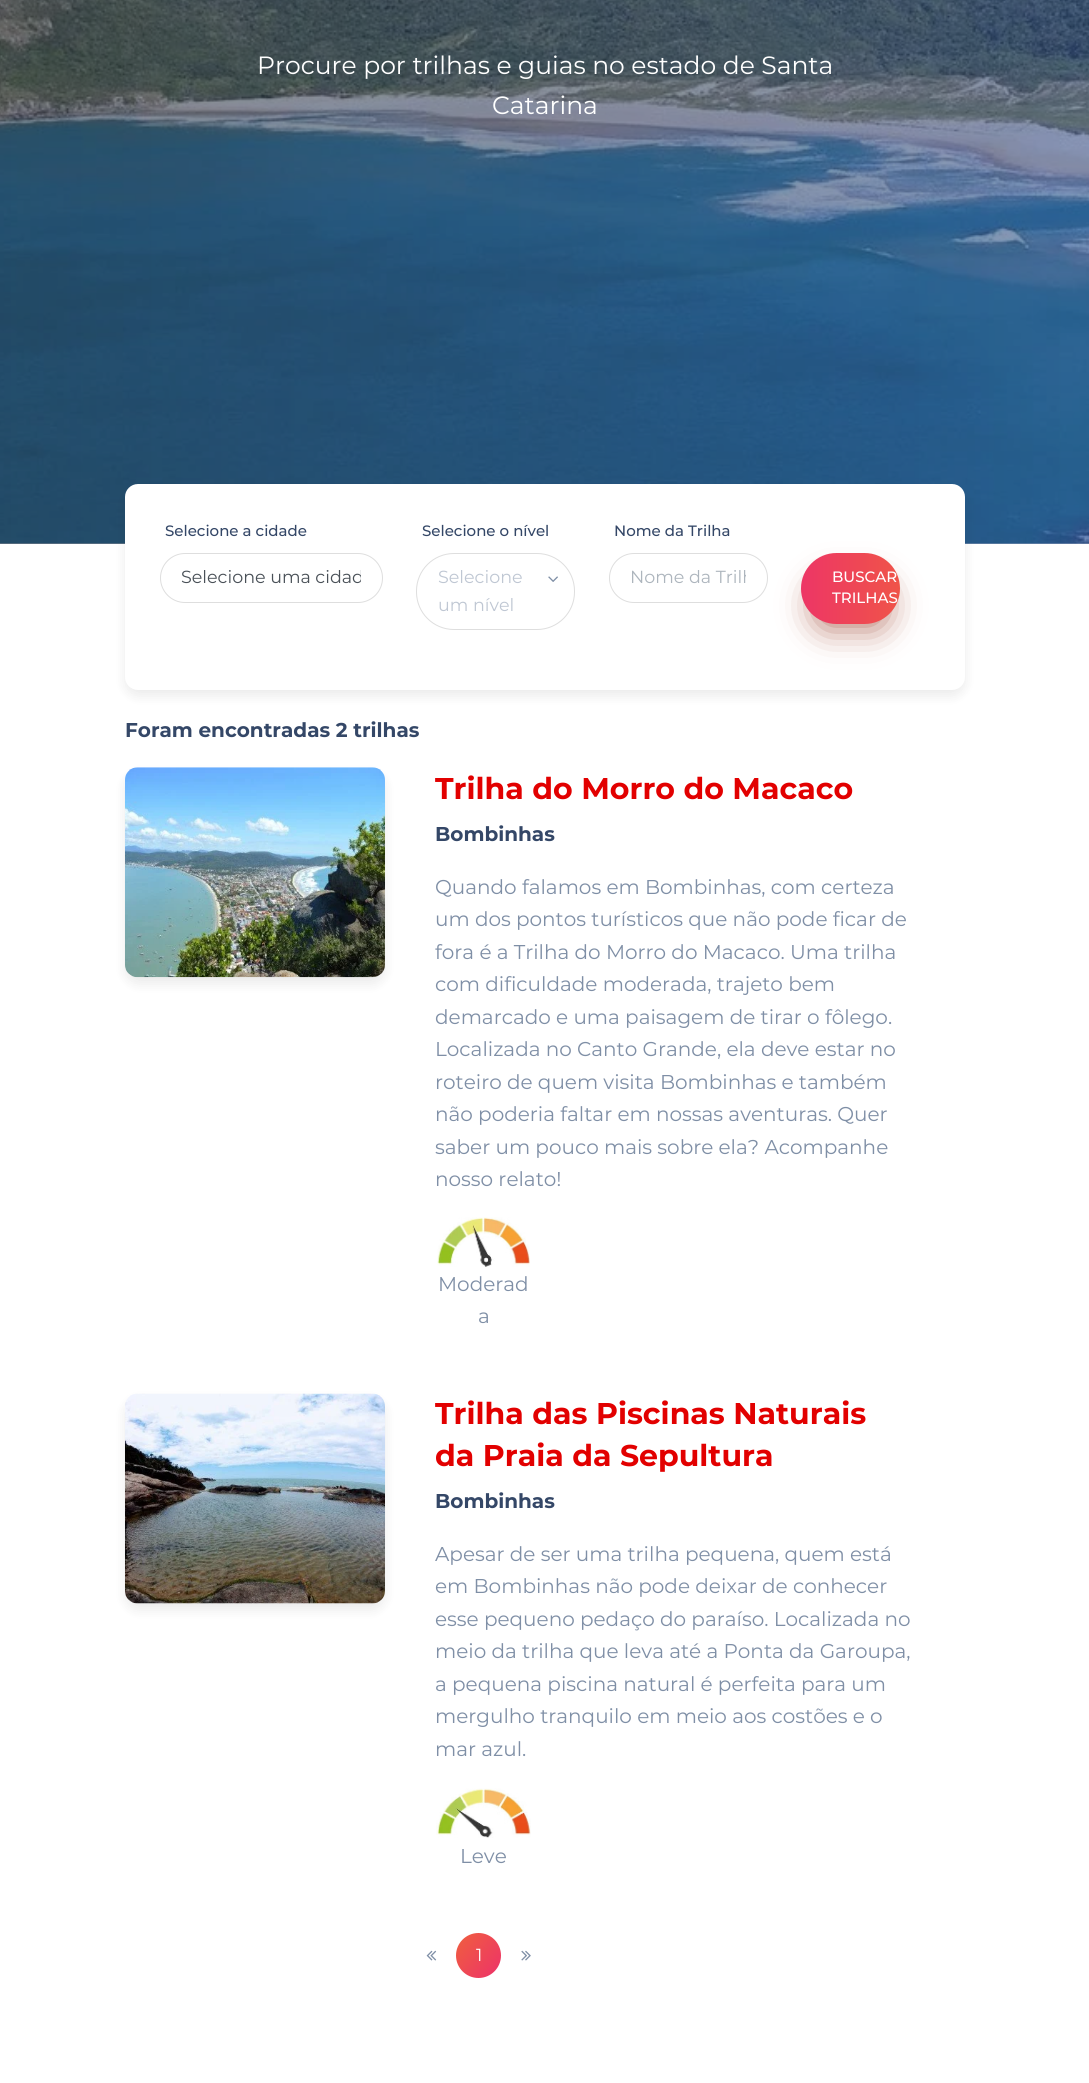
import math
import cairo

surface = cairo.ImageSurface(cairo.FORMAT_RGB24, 1089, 2083)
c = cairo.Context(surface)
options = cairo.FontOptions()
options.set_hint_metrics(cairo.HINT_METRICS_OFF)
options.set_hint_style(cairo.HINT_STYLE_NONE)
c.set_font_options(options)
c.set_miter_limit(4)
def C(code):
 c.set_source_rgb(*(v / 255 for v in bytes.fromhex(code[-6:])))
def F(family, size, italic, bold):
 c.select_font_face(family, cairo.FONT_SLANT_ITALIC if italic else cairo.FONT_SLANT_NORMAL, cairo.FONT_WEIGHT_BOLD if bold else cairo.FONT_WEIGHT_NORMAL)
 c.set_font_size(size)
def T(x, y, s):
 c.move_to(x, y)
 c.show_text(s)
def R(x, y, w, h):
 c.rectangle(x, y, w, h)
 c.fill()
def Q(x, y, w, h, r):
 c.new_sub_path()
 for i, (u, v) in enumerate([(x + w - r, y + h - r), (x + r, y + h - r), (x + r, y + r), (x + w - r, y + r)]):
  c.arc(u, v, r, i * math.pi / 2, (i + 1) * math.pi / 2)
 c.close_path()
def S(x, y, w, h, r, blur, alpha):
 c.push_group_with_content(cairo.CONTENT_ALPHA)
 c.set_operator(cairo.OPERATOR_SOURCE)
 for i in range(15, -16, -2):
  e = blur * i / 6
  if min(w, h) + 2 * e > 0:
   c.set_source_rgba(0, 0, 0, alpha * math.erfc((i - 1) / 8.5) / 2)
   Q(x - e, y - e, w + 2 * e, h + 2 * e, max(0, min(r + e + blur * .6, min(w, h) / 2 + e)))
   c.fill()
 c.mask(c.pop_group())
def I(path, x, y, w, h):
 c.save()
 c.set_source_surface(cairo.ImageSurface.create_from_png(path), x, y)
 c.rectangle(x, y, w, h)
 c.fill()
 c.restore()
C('ffffff')
c.paint()
I('1.png',0,0,1089,544)
gradient = cairo.LinearGradient(0,23,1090,22)
gradient.add_color_stop_rgba(0,0.208,0.231,0.282,.6)
gradient.add_color_stop_rgba(1,0.231,0.333,0.533,.6)
c.set_source(gradient)
R(0,0,1089,544)
F('Montserrat',25,0,0)
C('ffffff')
T(257,74,'Procure por trilhas e guias no estado de Santa')
T(492,114,'Catarina')
C('000000')
S(125,490,840,206,13,6,.08)
C('ffffff')
Q(125,484,840,206,13)
c.fill()
F('Montserrat Medium',15,0,0)
C('344767')
T(165,536,'Selecione a cidade')
Q(160.5,553.5,222,49,24.5)
C('dedede')
c.set_line_width(1)
c.stroke()
c.save()
c.rectangle(181,564,180,27)
c.clip()
F('Montserrat',17.5,0,0)
C('495057')
T(181,583,'Selecione uma cidad')
c.restore()
C('344767')
T(422,536,'Selecione o nível')
Q(416.5,553.5,158,76,37.5)
C('dedede')
c.stroke()
F('Montserrat',17.5,0,0)
C('bfc7d3')
T(438,583,'Selecione')
T(438,611,'um nível')
I('2.png',548,576,10,6)
F('Montserrat Medium',15,0,0)
C('344767')
T(614,536,'Nome da Trilha')
C('f05f3e')
S(818,586,66,39,19.5,18,.6)
C('000000')
S(818,586,66,39,19.5,18,.3)
Q(609.5,553.5,158,49,24.5)
C('dedede')
c.stroke()
c.save()
c.rectangle(630,566,116,23)
c.clip()
F('Montserrat',17.5,0,0)
C('adb5bd')
T(630,583,'Nome da Trilh')
c.restore()
gradient = cairo.LinearGradient(789,588,937,588)
gradient.add_color_stop_rgba(0,0.929,0.196,0.412,1)
gradient.add_color_stop_rgba(1,0.941,0.373,0.243,1)
c.set_source(gradient)
Q(801,553,99,71,35.5)
c.fill()
C('ffffff')
T(832,582,'BUSCAR')
T(832,603,'TRILHAS')
F('Montserrat',20,0,1)
C('344767')
T(125,737,'Foram encontradas 2 trilhas')
C('000000')
S(125,774,260,210,13,6,.08)
I('3.png',125,767,260,211)
F('Montserrat',30,0,1)
C('e20000')
T(435,799,'Trilha do Morro do Macaco')
F('Montserrat',20,0,1)
C('344767')
T(435,841,'Bombinhas')
F('Montserrat',20,0,0)
C('7f8fa6')
T(435,894,'Quando falamos em Bombinhas, com certeza')
T(435,926,'um dos pontos turísticos que não pode ficar de')
T(435,959,'fora é a Trilha do Morro do Macaco. Uma trilha')
T(435,991,'com dificuldade moderada, trajeto bem')
T(435,1024,'demarcado e uma paisagem de tirar o fôlego.')
T(435,1056,'Localizada no Canto Grande, ela deve estar no')
T(435,1089,'roteiro de quem visita Bombinhas e também')
T(435,1121,'não poderia faltar em nossas aventuras. Quer')
T(435,1154,'saber um pouco mais sobre ela? Acompanhe')
T(435,1186,'nosso relato!')
I('4.png',437,1217,93,50)
T(438,1291,'Moderad')
T(478,1323,'a')
C('000000')
S(125,1400,260,210,13,6,.08)
I('5.png',125,1393,260,211)
F('Montserrat',30,0,1)
C('e20000')
T(435,1424,'Trilha das Piscinas Naturais')
T(435,1466,'da Praia da Sepultura')
F('Montserrat',20,0,1)
C('344767')
T(435,1508,'Bombinhas')
F('Montserrat',20,0,0)
C('7f8fa6')
T(435,1561,'Apesar de ser uma trilha pequena, quem está')
T(435,1593,'em Bombinhas não pode deixar de conhecer')
T(435,1626,'esse pequeno pedaço do paraíso. Localizada no')
T(435,1658,'meio da trilha que leva até a Ponta da Garoupa,')
T(435,1691,'a pequena piscina natural é perfeita para um')
T(435,1723,'mergulho tranquilo em meio aos costões e o')
T(435,1756,'mar azul.')
I('6.png',436,1788,95,50)
T(460,1863,'Leve')
I('7.png',426,1950,11,11)
gradient = cairo.LinearGradient(503,1975,454,1935)
gradient.add_color_stop_rgba(0,0.929,0.196,0.412,1)
gradient.add_color_stop_rgba(1,0.941,0.373,0.243,1)
c.set_source(gradient)
c.arc(478.5,1955.5,22.5,0,2 * math.pi)
c.fill()
F('Montserrat',17.5,0,0)
C('ffffff')
T(476,1961,'1')
I('8.png',521,1950,10,11)
surface.write_to_png('o.png')
